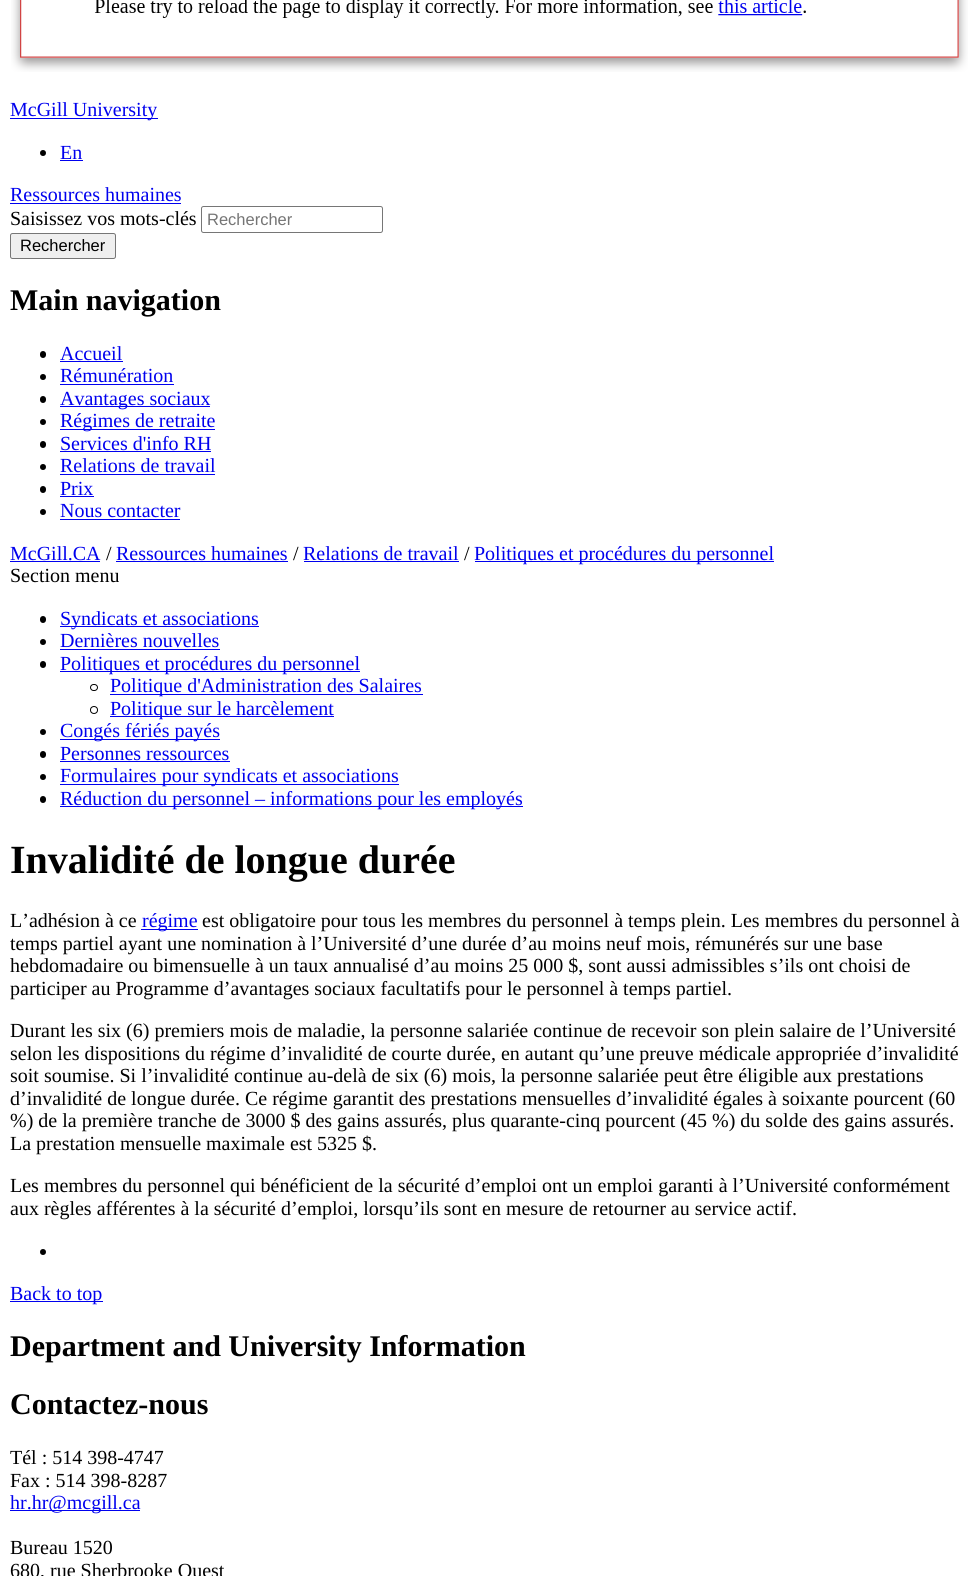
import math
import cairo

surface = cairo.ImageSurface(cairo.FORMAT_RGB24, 978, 1576)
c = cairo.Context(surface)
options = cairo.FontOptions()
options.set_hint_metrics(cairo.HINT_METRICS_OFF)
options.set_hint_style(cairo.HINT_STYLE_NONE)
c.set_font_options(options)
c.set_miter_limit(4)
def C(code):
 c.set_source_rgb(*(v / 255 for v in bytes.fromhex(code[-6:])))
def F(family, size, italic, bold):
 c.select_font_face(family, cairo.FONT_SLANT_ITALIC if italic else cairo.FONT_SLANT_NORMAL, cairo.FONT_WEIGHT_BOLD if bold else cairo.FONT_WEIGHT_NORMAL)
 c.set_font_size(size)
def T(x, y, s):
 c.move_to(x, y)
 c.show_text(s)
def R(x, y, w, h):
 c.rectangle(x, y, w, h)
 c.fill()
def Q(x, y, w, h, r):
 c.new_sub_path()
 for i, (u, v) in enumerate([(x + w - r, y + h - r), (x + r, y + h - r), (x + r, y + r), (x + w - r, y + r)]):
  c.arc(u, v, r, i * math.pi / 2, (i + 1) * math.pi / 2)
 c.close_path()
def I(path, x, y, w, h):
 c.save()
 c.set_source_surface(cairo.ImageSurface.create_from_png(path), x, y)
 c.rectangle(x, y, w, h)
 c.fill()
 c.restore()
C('ffffff')
c.paint()
I('1.png',11,0,957,72)
C('0000ee')
R(10,118,148,1)
F('Liberation Serif',20,0,0)
T(10,116,'McGill University')
C('000000')
c.new_path()
c.arc(43,153,3,0,2 * math.pi)
c.fill()
C('0000ee')
T(60,159,'En')
R(60,160,23,1)
T(10,201,'Ressources humaines')
R(10,203,171,1)
C('000000')
T(10,225,'Saisissez vos mots-clés')
Q(201.5,206.5,181,26,2)
C('767676')
c.set_line_width(1)
c.stroke()
F('Liberation Sans',16.5,0,0)
C('757575')
T(207,225,'Rechercher')
C('efefef')
Q(10.5,233.5,105,25,2)
c.fill_preserve()
C('767676')
c.stroke()
C('000000')
T(20,251,'Rechercher')
F('Liberation Serif',30,0,1)
T(10,310,'Main navigation')
Q(40,351,6,7,3)
c.fill()
F('Liberation Serif',20,0,0)
C('0000ee')
T(60,360,'Accueil')
R(60,361,63,1)
C('000000')
c.new_path()
c.arc(43,377,3,0,2 * math.pi)
c.fill()
C('0000ee')
T(60,382,'Rémunération')
R(60,384,114,1)
C('000000')
Q(40,396,6,7,3)
c.fill()
C('0000ee')
R(60,406,150,1)
T(60,405,'Avantages sociaux')
C('000000')
c.new_path()
c.arc(43,422,3,0,2 * math.pi)
c.fill()
C('0000ee')
R(60,429,155,1)
T(60,427,'Régimes de retraite')
C('000000')
Q(40,441,6,7,3)
c.fill()
C('0000ee')
T(60,450,'Services d\'info RH')
R(60,451,151,1)
C('000000')
c.new_path()
c.arc(43,467,3,0,2 * math.pi)
c.fill()
C('0000ee')
T(60,472,'Relations de travail')
R(60,474,155,1)
C('000000')
Q(40,486,6,7,3)
c.fill()
C('0000ee')
T(60,495,'Prix')
R(60,496,34,1)
C('000000')
c.new_path()
c.arc(43,512,3,0,2 * math.pi)
c.fill()
C('0000ee')
T(60,517,'Nous contacter')
R(60,519,120,1)
T(10,560,'McGill.CA')
R(10,561,90,1)
C('000000')
T(106,560,'/')
C('0000ee')
T(116,560,'Ressources humaines')
R(116,561,172,1)
C('000000')
T(293,560,'/')
C('0000ee')
T(303,560,'Relations de travail')
R(304,561,155,1)
C('000000')
T(464,560,'/')
C('0000ee')
R(475,561,299,1)
T(474,560,'Politiques et procédures du personnel')
C('000000')
T(10,582,'Section menu')
Q(40,616,6,7,3)
c.fill()
C('0000ee')
R(60,626,199,1)
T(60,625,'Syndicats et associations')
C('000000')
c.new_path()
c.arc(43,642,3,0,2 * math.pi)
c.fill()
C('0000ee')
T(60,647,'Dernières nouvelles')
R(60,649,160,1)
C('000000')
Q(40,661,6,7,3)
c.fill()
C('0000ee')
R(60,671,300,1)
T(60,670,'Politiques et procédures du personnel')
Q(90.5,684.5,7,6,3)
C('000000')
c.stroke()
C('0000ee')
R(110,694,313,1)
T(110,692,'Politique d\'Administration des Salaires')
c.new_path()
c.arc(94,710,3.5,0,2 * math.pi)
C('000000')
c.stroke()
C('0000ee')
R(110,716,224,1)
T(110,715,'Politique sur le harcèlement')
C('000000')
c.new_path()
c.arc(43,732,3,0,2 * math.pi)
c.fill()
C('0000ee')
R(60,739,160,1)
T(60,737,'Congés fériés payés')
C('000000')
Q(40,751,6,7,3)
c.fill()
C('0000ee')
T(60,760,'Personnes ressources')
R(60,761,170,1)
C('000000')
c.new_path()
c.arc(43,777,3,0,2 * math.pi)
c.fill()
C('0000ee')
R(60,784,339,1)
T(60,782,'Formulaires pour syndicats et associations')
C('000000')
Q(40,796,6,7,3)
c.fill()
C('0000ee')
R(60,806,463,1)
T(60,805,'Réduction du personnel – informations pour les employés')
F('Liberation Serif',40,0,1)
C('000000')
T(10,873,'Invalidité de longue durée')
F('Liberation Serif',20,0,0)
T(10,927,'L’adhésion à ce')
C('0000ee')
R(141,929,57,1)
T(142,927,'régime')
C('000000')
T(202,927,'est obligatoire pour tous les membres du personnel à temps plein. Les membres du personnel à')
T(10,950,'temps partiel ayant une nomination à l’Université d’une durée d’au moins neuf mois, rémunérés sur une base')
T(10,972,'hebdomadaire ou bimensuelle à un taux annualisé d’au moins 25 000 $, sont aussi admissibles s’ils ont choisi de')
T(10,995,'participer au Programme d’avantages sociaux facultatifs pour le personnel à temps partiel.')
T(10,1037,'Durant les six (6) premiers mois de maladie, la personne salariée continue de recevoir son plein salaire de l’Université')
T(10,1060,'selon les dispositions du régime d’invalidité de courte durée, en autant qu’une preuve médicale appropriée d’invalidité')
T(10,1082,'soit soumise. Si l’invalidité continue au-delà de six (6) mois, la personne salariée peut être éligible aux prestations')
T(10,1105,'d’invalidité de longue durée. Ce régime garantit des prestations mensuelles d’invalidité égales à soixante pourcent (60')
T(10,1127,'%) de la première tranche de 3000 $ des gains assurés, plus quarante-cinq pourcent (45 %) du solde des gains assurés.')
T(10,1150,'La prestation mensuelle maximale est 5325 $.')
T(10,1192,'Les membres du personnel qui bénéficient de la sécurité d’emploi ont un emploi garanti à l’Université conformément')
T(10,1215,'aux règles afférentes à la sécurité d’emploi, lorsqu’ils sont en mesure de retourner au service actif.')
c.new_path()
c.arc(43,1252,3,0,2 * math.pi)
c.fill()
C('0000ee')
R(10,1301,93,1)
T(10,1300,'Back to top')
F('Liberation Serif',30,0,1)
C('000000')
T(10,1356,'Department and University Information')
T(10,1414,'Contactez-nous')
F('Liberation Serif',20,0,0)
T(10,1464,'Tél : 514 398-4747')
T(10,1487,'Fax : 514 398-8287')
C('0000ee')
R(10,1510,130,1)
T(10,1509,'hr.hr@mcgill.ca')
C('000000')
T(10,1554,'Bureau 1520')
T(10,1577,'680, rue Sherbrooke Ouest')
surface.write_to_png('o.png')
